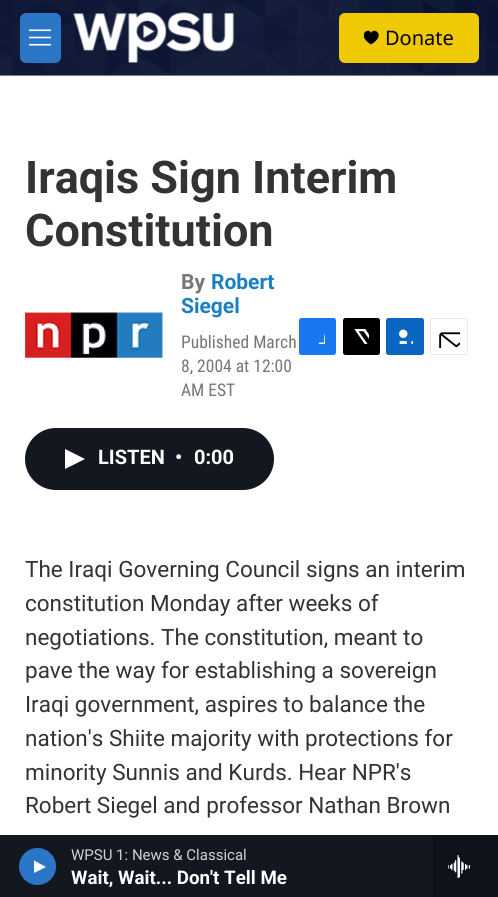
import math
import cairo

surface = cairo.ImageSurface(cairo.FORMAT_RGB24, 498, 897)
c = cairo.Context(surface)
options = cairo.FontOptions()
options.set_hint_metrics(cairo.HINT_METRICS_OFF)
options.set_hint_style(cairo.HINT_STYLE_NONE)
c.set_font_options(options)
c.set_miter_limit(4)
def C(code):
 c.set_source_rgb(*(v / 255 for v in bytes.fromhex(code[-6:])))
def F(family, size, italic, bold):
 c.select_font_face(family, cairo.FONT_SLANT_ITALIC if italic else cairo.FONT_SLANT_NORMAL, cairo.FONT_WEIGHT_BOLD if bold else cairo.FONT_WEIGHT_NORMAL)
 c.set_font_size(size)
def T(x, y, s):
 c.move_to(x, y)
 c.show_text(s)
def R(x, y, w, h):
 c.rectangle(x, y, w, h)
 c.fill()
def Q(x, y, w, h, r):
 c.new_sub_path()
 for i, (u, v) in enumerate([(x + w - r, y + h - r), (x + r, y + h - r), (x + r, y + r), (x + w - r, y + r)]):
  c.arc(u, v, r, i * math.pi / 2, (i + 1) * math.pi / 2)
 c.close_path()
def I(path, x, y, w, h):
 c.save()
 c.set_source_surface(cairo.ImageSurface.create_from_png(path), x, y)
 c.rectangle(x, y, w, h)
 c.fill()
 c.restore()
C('ffffff')
c.paint()
C('7b7b7b')
R(0,75,498,1)
I('1.png',0,0,498,75)
C('2c76c7')
Q(20,13,41,50,6)
c.fill()
I('2.png',29,29,22,17)
I('3.png',73,12,162,51)
C('efc903')
Q(339,13,140,50,6)
c.fill()
c.save()
c.rectangle(364,30,15,15)
c.clip()
C('000000')
c.new_path()
c.move_to(371,33)
c.curve_to(369,26.5,355.5,35,371,44.5)
c.curve_to(387,35,373.5,26.5,371,33)
c.close_path()
c.fill()
c.restore()
F('Noto Sans',20,0,0)
C('000000')
T(385,45,'Donate')
C('131720')
R(0,835,433,62)
C('2c76c7')
c.new_path()
c.arc(37.5,866.5,18.5,0,2 * math.pi)
c.fill()
C('ffffff')
c.new_path()
c.move_to(34,860.5)
c.line_to(46,867)
c.line_to(34,873)
c.close_path()
c.fill()
F('Roboto',15,0,0)
C('d0d1d2')
T(71,860,'WPSU 1: News & Classical')
F('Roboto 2',18.75,0,1)
C('ffffff')
T(71,884,'Wait, Wait... Don\'t Tell Me')
C('0f121a')
R(433,835,65,62)
I('4.png',448,855,22,23)
F('Roboto',45,0,1)
C('333333')
T(25,193,'Iraqis Sign Interim')
T(25,246,'Constitution')
I('5.png',25,312,138,47)
F('Roboto',21,0,1)
C('767676')
T(181,289,'By')
C('1a7fc3')
T(211,289,'Robert')
T(181,313,'Siegel')
F('Roboto Condensed',17.5,0,0)
C('767676')
T(181,348,'Published March')
T(181,372,'8, 2004 at 12:00')
T(181,396,'AM EST')
C('1778f2')
Q(299,318,37,37,2.5)
c.fill()
I('6.png',318,333,7,11)
C('000000')
Q(343,318,37,37,2.5)
c.fill()
I('7.png',354,329,15,15)
C('0a66c1')
Q(386,318,38,37,2.5)
c.fill()
I('8.png',399,329,14,15)
Q(430.5,318.5,37,36,2)
C('e6e6e6')
c.set_line_width(1)
c.stroke()
I('9.png',439,332,21,16)
C('131720')
Q(25,428,249,62,31)
c.fill()
C('ffffff')
c.new_path()
c.move_to(65,449)
c.line_to(85,459)
c.line_to(65,469)
c.close_path()
c.fill()
F('Roboto 2',20,0,1)
T(98,464,'LISTEN')
T(175,464,'•')
T(194,464,'0:00')
F('Roboto',22.5,0,0)
C('333333')
T(25,577,'The Iraqi Governing Council signs an interim')
T(25,611,'constitution Monday after weeks of')
T(25,645,'negotiations. The constitution, meant to')
T(25,678,'pave the way for establishing a sovereign')
T(25,712,'Iraqi government, aspires to balance the')
T(25,746,'nation\'s Shiite majority with protections for')
T(25,780,'minority Sunnis and Kurds. Hear NPR\'s')
T(25,813,'Robert Siegel and professor Nathan Brown')
surface.write_to_png('o.png')
